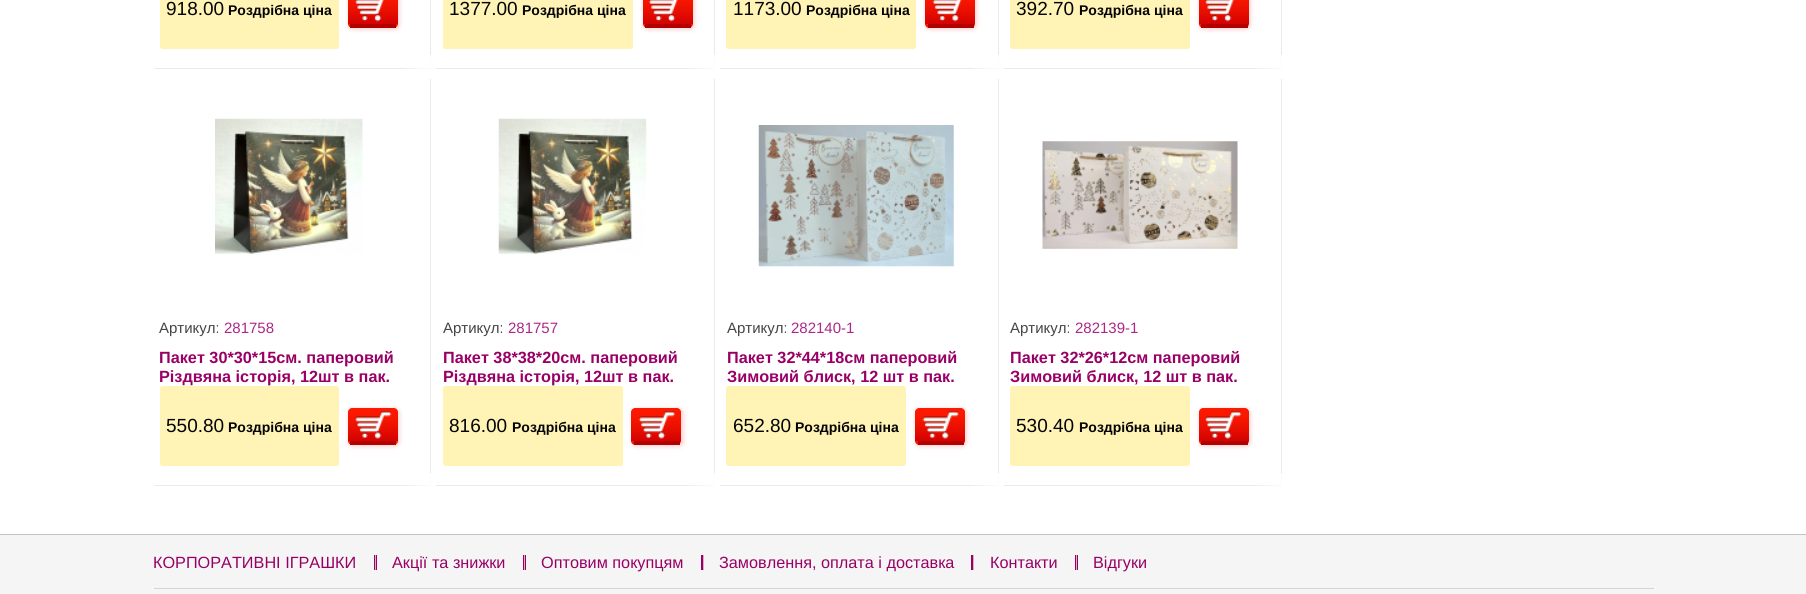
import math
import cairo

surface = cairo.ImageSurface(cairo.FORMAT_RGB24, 1806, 594)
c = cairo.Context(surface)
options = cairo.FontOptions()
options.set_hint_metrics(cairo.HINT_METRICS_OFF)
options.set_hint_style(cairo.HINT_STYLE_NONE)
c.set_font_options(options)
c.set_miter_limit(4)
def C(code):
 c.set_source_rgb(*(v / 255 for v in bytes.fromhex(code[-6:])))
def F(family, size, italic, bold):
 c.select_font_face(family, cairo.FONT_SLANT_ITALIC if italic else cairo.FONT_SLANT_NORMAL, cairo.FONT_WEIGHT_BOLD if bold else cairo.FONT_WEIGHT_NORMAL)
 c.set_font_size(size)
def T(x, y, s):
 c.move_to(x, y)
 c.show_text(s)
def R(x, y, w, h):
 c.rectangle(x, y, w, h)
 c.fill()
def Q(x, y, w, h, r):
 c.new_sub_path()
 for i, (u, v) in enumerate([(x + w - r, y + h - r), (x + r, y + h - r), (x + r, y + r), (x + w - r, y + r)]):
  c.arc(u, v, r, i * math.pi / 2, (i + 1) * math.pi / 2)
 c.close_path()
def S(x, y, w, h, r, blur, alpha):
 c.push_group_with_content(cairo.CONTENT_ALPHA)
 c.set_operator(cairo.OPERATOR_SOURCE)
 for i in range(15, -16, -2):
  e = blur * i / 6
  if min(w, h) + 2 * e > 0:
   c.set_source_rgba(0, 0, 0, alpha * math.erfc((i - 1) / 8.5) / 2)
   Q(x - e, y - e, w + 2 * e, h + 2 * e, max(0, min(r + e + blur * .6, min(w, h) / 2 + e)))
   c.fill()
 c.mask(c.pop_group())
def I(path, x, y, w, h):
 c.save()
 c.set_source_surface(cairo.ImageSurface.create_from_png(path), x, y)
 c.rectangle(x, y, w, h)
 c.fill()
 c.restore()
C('ffffff')
c.paint()
C('eaeaea')
R(430,0,1,69)
R(154,68,277,1)
C('fff3b5')
Q(160,-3,179,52,2.5)
c.fill()
F('Liberation Sans',19,0,0)
C('040404')
T(166,15,'918.00')
F('Liberation Sans',14,0,1)
T(228,15,'Роздрібна ціна')
C('fbc7c7')
S(349,-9,50,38,4,2.5,1)
gradient = cairo.LinearGradient(373,24,373,-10)
gradient.add_color_stop_rgba(0,0.82,0.008,0,1)
gradient.add_color_stop_rgba(.33,0.902,0.051,0,1)
gradient.add_color_stop_rgba(.67,0.965,0.086,0,1)
gradient.add_color_stop_rgba(1,0.996,0.102,0,1)
c.set_source(gradient)
R(348,0,50,24)
gradient = cairo.LinearGradient(373,58,373,24)
gradient.add_color_stop_rgba(0,0.82,0.008,0,1)
gradient.add_color_stop_rgba(.33,0.902,0.051,0,1)
gradient.add_color_stop_rgba(.67,0.965,0.086,0,1)
gradient.add_color_stop_rgba(1,0.996,0.102,0,1)
c.set_source(gradient)
c.new_path()
c.move_to(348,24)
c.line_to(398,24)
c.curve_to(398,26,396,28,394,28)
c.line_to(352,28)
c.curve_to(350,28,348,26,348,24)
c.close_path()
c.fill()
C('b20100')
R(350,24,46,4)
I('1.png',355,0,29,22)
gradient = cairo.LinearGradient(399,67,436,67)
gradient.add_color_stop_rgba(0,1,1,1,0)
gradient.add_color_stop_rgba(1,1,1,1,1)
c.set_source(gradient)
R(404,55,27,14)
C('eaeaea')
R(714,0,1,69)
R(436,68,279,1)
C('fff3b5')
Q(443,-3,190,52,2.5)
c.fill()
F('Liberation Sans',19,0,0)
C('040404')
T(449,15,'1377.00')
F('Liberation Sans',14,0,1)
T(522,15,'Роздрібна ціна')
C('fbc7c7')
S(644,-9,50,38,4,2.5,1)
gradient = cairo.LinearGradient(668,24,668,-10)
gradient.add_color_stop_rgba(0,0.82,0.008,0,1)
gradient.add_color_stop_rgba(.33,0.902,0.051,0,1)
gradient.add_color_stop_rgba(.67,0.965,0.086,0,1)
gradient.add_color_stop_rgba(1,0.996,0.102,0,1)
c.set_source(gradient)
R(643,0,50,24)
gradient = cairo.LinearGradient(668,58,668,24)
gradient.add_color_stop_rgba(0,0.82,0.008,0,1)
gradient.add_color_stop_rgba(.33,0.902,0.051,0,1)
gradient.add_color_stop_rgba(.67,0.965,0.086,0,1)
gradient.add_color_stop_rgba(1,0.996,0.102,0,1)
c.set_source(gradient)
c.new_path()
c.move_to(643,24)
c.line_to(693,24)
c.curve_to(693,26,691,28,689,28)
c.line_to(647,28)
c.curve_to(645,28,643,26,643,24)
c.close_path()
c.fill()
C('b20100')
R(645,24,46,4)
I('2.png',648,0,30,22)
gradient = cairo.LinearGradient(683,67,720,67)
gradient.add_color_stop_rgba(0,1,1,1,0)
gradient.add_color_stop_rgba(1,1,1,1,1)
c.set_source(gradient)
R(688,55,27,14)
C('eaeaea')
R(998,0,1,69)
R(720,68,279,1)
C('fff3b5')
Q(726,-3,190,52,2.5)
c.fill()
F('Liberation Sans',19,0,0)
C('040404')
T(733,15,'1173.00')
F('Liberation Sans',14,0,1)
T(806,15,'Роздрібна ціна')
C('fbc7c7')
S(926,-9,50,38,4,2.5,1)
gradient = cairo.LinearGradient(950,24,950,-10)
gradient.add_color_stop_rgba(0,0.82,0.008,0,1)
gradient.add_color_stop_rgba(.33,0.902,0.051,0,1)
gradient.add_color_stop_rgba(.67,0.965,0.086,0,1)
gradient.add_color_stop_rgba(1,0.996,0.102,0,1)
c.set_source(gradient)
R(925,0,50,24)
gradient = cairo.LinearGradient(950,58,950,24)
gradient.add_color_stop_rgba(0,0.82,0.008,0,1)
gradient.add_color_stop_rgba(.33,0.902,0.051,0,1)
gradient.add_color_stop_rgba(.67,0.965,0.086,0,1)
gradient.add_color_stop_rgba(1,0.996,0.102,0,1)
c.set_source(gradient)
c.new_path()
c.move_to(925,24)
c.line_to(975,24)
c.curve_to(975,26,973,28,971,28)
c.line_to(929,28)
c.curve_to(927,28,925,26,925,24)
c.close_path()
c.fill()
C('b20100')
R(928,24,46,4)
I('3.png',932,0,30,22)
gradient = cairo.LinearGradient(966,67,1004,67)
gradient.add_color_stop_rgba(0,1,1,1,0)
gradient.add_color_stop_rgba(1,1,1,1,1)
c.set_source(gradient)
R(971,55,28,14)
C('eaeaea')
R(1281,0,1,69)
R(1004,68,279,1)
C('fff3b5')
Q(1010,-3,180,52,2.5)
c.fill()
F('Liberation Sans',19,0,0)
C('040404')
T(1016,15,'392.70')
F('Liberation Sans',14,0,1)
T(1079,15,'Роздрібна ціна')
C('fbc7c7')
S(1200,-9,50,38,4,2.5,1)
gradient = cairo.LinearGradient(1224,24,1224,-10)
gradient.add_color_stop_rgba(0,0.82,0.008,0,1)
gradient.add_color_stop_rgba(.33,0.902,0.051,0,1)
gradient.add_color_stop_rgba(.67,0.965,0.086,0,1)
gradient.add_color_stop_rgba(1,0.996,0.102,0,1)
c.set_source(gradient)
R(1199,0,50,24)
gradient = cairo.LinearGradient(1224,58,1224,24)
gradient.add_color_stop_rgba(0,0.82,0.008,0,1)
gradient.add_color_stop_rgba(.33,0.902,0.051,0,1)
gradient.add_color_stop_rgba(.67,0.965,0.086,0,1)
gradient.add_color_stop_rgba(1,0.996,0.102,0,1)
c.set_source(gradient)
c.new_path()
c.move_to(1199,24)
c.line_to(1249,24)
c.curve_to(1249,26,1247,28,1245,28)
c.line_to(1203,28)
c.curve_to(1201,28,1199,26,1199,24)
c.close_path()
c.fill()
C('b20100')
R(1201,24,47,4)
I('1.png',1205,0,29,22)
gradient = cairo.LinearGradient(1250,67,1288,67)
gradient.add_color_stop_rgba(0,1,1,1,0)
gradient.add_color_stop_rgba(1,1,1,1,1)
c.set_source(gradient)
R(1255,55,28,14)
C('eaeaea')
R(430,79,1,407)
R(154,485,277,1)
I('4.png',215,118,148,136)
F('Liberation Sans',15,0,0)
C('454545')
T(159,333,'Артикул:')
C('ac2788')
T(224,333,'281758')
F('Liberation Sans',16.25,0,1)
C('990066')
T(159,363,'Пакет 30*30*15см. паперовий')
T(159,382,'Різдвяна історія, 12шт в пак.')
gradient = cairo.LinearGradient(399,484,436,484)
gradient.add_color_stop_rgba(0,1,1,1,0)
gradient.add_color_stop_rgba(1,1,1,1,1)
c.set_source(gradient)
R(404,473,27,13)
C('fff3b5')
Q(160,386,179,80,2.5)
c.fill()
F('Liberation Sans',19,0,0)
C('040404')
T(166,432,'550.80')
F('Liberation Sans',14,0,1)
T(228,432,'Роздрібна ціна')
C('fbc7c7')
S(349,409,50,37,4,2.5,1)
gradient = cairo.LinearGradient(373,441,373,408)
gradient.add_color_stop_rgba(0,0.82,0.008,0,1)
gradient.add_color_stop_rgba(.33,0.902,0.051,0,1)
gradient.add_color_stop_rgba(.67,0.965,0.086,0,1)
gradient.add_color_stop_rgba(1,0.996,0.102,0,1)
c.set_source(gradient)
c.new_path()
c.move_to(352,408)
c.line_to(394,408)
c.curve_to(396,408,398,410,398,412)
c.line_to(398,441)
c.line_to(348,441)
c.line_to(348,412)
c.curve_to(348,410,350,408,352,408)
c.close_path()
c.fill()
gradient = cairo.LinearGradient(373,475,373,441)
gradient.add_color_stop_rgba(0,0.82,0.008,0,1)
gradient.add_color_stop_rgba(.33,0.902,0.051,0,1)
gradient.add_color_stop_rgba(.67,0.965,0.086,0,1)
gradient.add_color_stop_rgba(1,0.996,0.102,0,1)
c.set_source(gradient)
c.new_path()
c.move_to(348,441)
c.line_to(398,441)
c.curve_to(398,443,396,445,394,445)
c.line_to(352,445)
c.curve_to(350,445,348,443,348,441)
c.close_path()
c.fill()
C('b20100')
R(350,441,46,4)
I('5.png',355,411,37,28)
C('eaeaea')
R(714,79,1,407)
R(436,485,279,1)
I('6.png',498,118,149,136)
F('Liberation Sans',15,0,0)
C('454545')
T(443,333,'Артикул:')
C('ac2788')
T(508,333,'281757')
F('Liberation Sans',16.25,0,1)
C('990066')
T(443,363,'Пакет 38*38*20см. паперовий')
T(443,382,'Різдвяна історія, 12шт в пак.')
gradient = cairo.LinearGradient(683,484,720,484)
gradient.add_color_stop_rgba(0,1,1,1,0)
gradient.add_color_stop_rgba(1,1,1,1,1)
c.set_source(gradient)
R(688,473,27,13)
C('fff3b5')
Q(443,386,180,80,2.5)
c.fill()
F('Liberation Sans',19,0,0)
C('040404')
T(449,432,'816.00')
F('Liberation Sans',14,0,1)
T(512,432,'Роздрібна ціна')
C('fbc7c7')
S(633,409,50,37,4,2.5,1)
gradient = cairo.LinearGradient(656,441,656,408)
gradient.add_color_stop_rgba(0,0.82,0.008,0,1)
gradient.add_color_stop_rgba(.33,0.902,0.051,0,1)
gradient.add_color_stop_rgba(.67,0.965,0.086,0,1)
gradient.add_color_stop_rgba(1,0.996,0.102,0,1)
c.set_source(gradient)
c.new_path()
c.move_to(635,408)
c.line_to(677,408)
c.curve_to(679,408,681,410,681,412)
c.line_to(681,441)
c.line_to(631,441)
c.line_to(631,412)
c.curve_to(631,410,633,408,635,408)
c.close_path()
c.fill()
gradient = cairo.LinearGradient(656,475,656,441)
gradient.add_color_stop_rgba(0,0.82,0.008,0,1)
gradient.add_color_stop_rgba(.33,0.902,0.051,0,1)
gradient.add_color_stop_rgba(.67,0.965,0.086,0,1)
gradient.add_color_stop_rgba(1,0.996,0.102,0,1)
c.set_source(gradient)
c.new_path()
c.move_to(631,441)
c.line_to(681,441)
c.curve_to(681,443,679,445,677,445)
c.line_to(635,445)
c.curve_to(633,445,631,443,631,441)
c.close_path()
c.fill()
C('b20100')
R(634,441,46,4)
I('7.png',638,411,37,28)
C('eaeaea')
R(998,79,1,407)
R(720,485,279,1)
I('8.png',758,125,196,142)
F('Liberation Sans',15,0,0)
C('454545')
T(727,333,'Артикул:')
C('ac2788')
T(791,333,'282140-1')
F('Liberation Sans',16.25,0,1)
C('990066')
T(727,363,'Пакет 32*44*18см паперовий')
T(727,382,'Зимовий блиск, 12 шт в пак.')
gradient = cairo.LinearGradient(966,484,1004,484)
gradient.add_color_stop_rgba(0,1,1,1,0)
gradient.add_color_stop_rgba(1,1,1,1,1)
c.set_source(gradient)
R(971,473,28,13)
C('fff3b5')
Q(726,386,180,80,2.5)
c.fill()
F('Liberation Sans',19,0,0)
C('040404')
T(733,432,'652.80')
F('Liberation Sans',14,0,1)
T(795,432,'Роздрібна ціна')
C('fbc7c7')
S(916,409,50,37,4,2.5,1)
gradient = cairo.LinearGradient(940,441,940,408)
gradient.add_color_stop_rgba(0,0.82,0.008,0,1)
gradient.add_color_stop_rgba(.33,0.902,0.051,0,1)
gradient.add_color_stop_rgba(.67,0.965,0.086,0,1)
gradient.add_color_stop_rgba(1,0.996,0.102,0,1)
c.set_source(gradient)
c.new_path()
c.move_to(919,408)
c.line_to(961,408)
c.curve_to(963,408,965,410,965,412)
c.line_to(965,441)
c.line_to(915,441)
c.line_to(915,412)
c.curve_to(915,410,917,408,919,408)
c.close_path()
c.fill()
gradient = cairo.LinearGradient(940,475,940,441)
gradient.add_color_stop_rgba(0,0.82,0.008,0,1)
gradient.add_color_stop_rgba(.33,0.902,0.051,0,1)
gradient.add_color_stop_rgba(.67,0.965,0.086,0,1)
gradient.add_color_stop_rgba(1,0.996,0.102,0,1)
c.set_source(gradient)
c.new_path()
c.move_to(915,441)
c.line_to(965,441)
c.curve_to(965,443,963,445,961,445)
c.line_to(919,445)
c.curve_to(917,445,915,443,915,441)
c.close_path()
c.fill()
C('b20100')
R(918,441,46,4)
I('9.png',922,411,37,28)
C('eaeaea')
R(1281,79,1,407)
R(1004,485,279,1)
I('10.png',1042,141,196,108)
F('Liberation Sans',15,0,0)
C('454545')
T(1010,333,'Артикул:')
C('ac2788')
T(1075,333,'282139-1')
F('Liberation Sans',16.25,0,1)
C('990066')
T(1010,363,'Пакет 32*26*12см паперовий')
T(1010,382,'Зимовий блиск, 12 шт в пак.')
gradient = cairo.LinearGradient(1250,484,1288,484)
gradient.add_color_stop_rgba(0,1,1,1,0)
gradient.add_color_stop_rgba(1,1,1,1,1)
c.set_source(gradient)
R(1255,473,28,13)
C('fff3b5')
Q(1010,386,180,80,2.5)
c.fill()
F('Liberation Sans',19,0,0)
C('040404')
T(1016,432,'530.40')
F('Liberation Sans',14,0,1)
T(1079,432,'Роздрібна ціна')
C('fbc7c7')
S(1200,409,50,37,4,2.5,1)
gradient = cairo.LinearGradient(1224,441,1224,408)
gradient.add_color_stop_rgba(0,0.82,0.008,0,1)
gradient.add_color_stop_rgba(.33,0.902,0.051,0,1)
gradient.add_color_stop_rgba(.67,0.965,0.086,0,1)
gradient.add_color_stop_rgba(1,0.996,0.102,0,1)
c.set_source(gradient)
c.new_path()
c.move_to(1203,408)
c.line_to(1245,408)
c.curve_to(1247,408,1249,410,1249,412)
c.line_to(1249,441)
c.line_to(1199,441)
c.line_to(1199,412)
c.curve_to(1199,410,1201,408,1203,408)
c.close_path()
c.fill()
gradient = cairo.LinearGradient(1224,475,1224,441)
gradient.add_color_stop_rgba(0,0.82,0.008,0,1)
gradient.add_color_stop_rgba(.33,0.902,0.051,0,1)
gradient.add_color_stop_rgba(.67,0.965,0.086,0,1)
gradient.add_color_stop_rgba(1,0.996,0.102,0,1)
c.set_source(gradient)
c.new_path()
c.move_to(1199,441)
c.line_to(1249,441)
c.curve_to(1249,443,1247,445,1245,445)
c.line_to(1203,445)
c.curve_to(1201,445,1199,443,1199,441)
c.close_path()
c.fill()
C('b20100')
R(1201,441,47,4)
I('5.png',1205,411,37,28)
C('f5f5f5')
R(0,535,1806,59)
C('c3c3c3')
R(0,534,1806,1)
C('d4d4d4')
R(154,588,1500,1)
F('Liberation Sans',16.25,0,0)
C('990066')
T(153,568,'КОРПОРАТИВНІ ІГРАШКИ')
R(374,555,3,15)
C('d3b0c4')
R(375,555,1,15)
C('990066')
T(392,568,'Акції та знижки')
R(523,555,3,15)
C('d3b0c4')
R(524,555,1,15)
C('990066')
T(541,568,'Оптовим покупцям')
R(701,555,2,15)
C('d3b0c4')
R(703,555,1,15)
C('990066')
T(719,568,'Замовлення, оплата і доставка')
R(971,555,2,15)
C('d3b0c4')
R(973,555,1,15)
C('990066')
T(990,568,'Контакти')
R(1075,555,3,15)
C('d3b0c4')
R(1076,555,1,15)
C('990066')
T(1093,568,'Відгуки')
surface.write_to_png('o.png')
